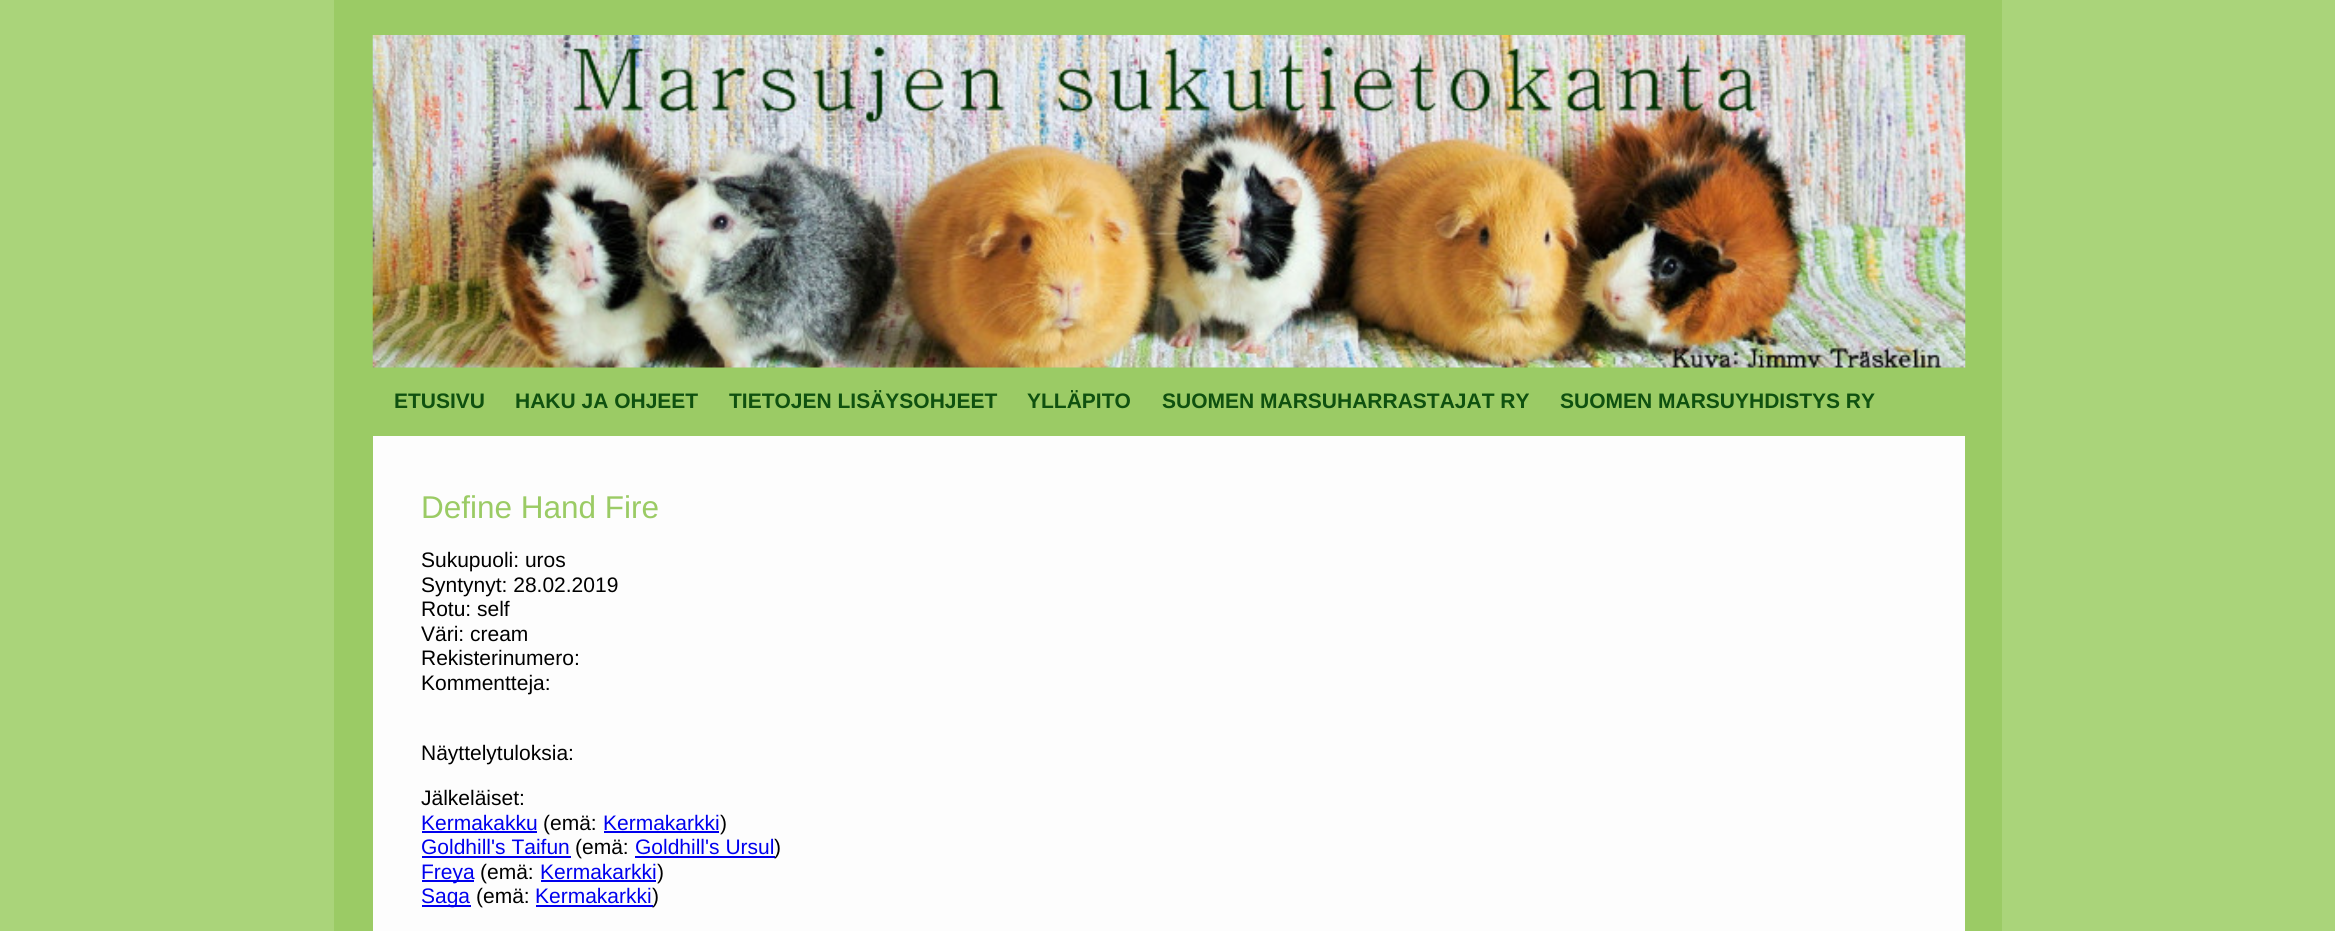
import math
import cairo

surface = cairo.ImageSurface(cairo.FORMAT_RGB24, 2335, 931)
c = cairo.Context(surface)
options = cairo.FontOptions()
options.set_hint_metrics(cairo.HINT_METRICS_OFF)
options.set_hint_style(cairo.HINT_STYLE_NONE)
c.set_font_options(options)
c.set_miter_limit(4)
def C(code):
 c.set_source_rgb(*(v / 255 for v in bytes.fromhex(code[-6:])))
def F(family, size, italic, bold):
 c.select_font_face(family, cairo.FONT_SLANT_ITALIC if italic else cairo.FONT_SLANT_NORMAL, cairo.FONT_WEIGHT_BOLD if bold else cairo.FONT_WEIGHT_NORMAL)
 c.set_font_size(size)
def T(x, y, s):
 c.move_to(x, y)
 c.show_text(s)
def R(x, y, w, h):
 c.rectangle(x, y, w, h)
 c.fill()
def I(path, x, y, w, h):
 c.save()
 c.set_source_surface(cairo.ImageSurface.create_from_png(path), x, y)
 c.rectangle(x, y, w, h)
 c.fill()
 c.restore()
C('aad47a')
c.paint()
C('9bcb65')
R(334,0,1668,931)
I('1.png',372,35,1594,333)
F('Liberation Sans',21,0,1)
C('0f510f')
T(394,408,'ETUSIVU')
T(515,408,'HAKU JA OHJEET')
T(729,408,'TIETOJEN LISÄYSOHJEET')
T(1027,408,'YLLÄPITO')
T(1162,408,'SUOMEN MARSUHARRASTAJAT RY')
T(1560,408,'SUOMEN MARSUYHDISTYS RY')
C('fdfdfd')
R(373,436,1592,495)
F('Liberation Sans',31.5,0,0)
C('9bcb65')
T(421,518,'Define Hand Fire')
F('Liberation Sans',21,0,0)
C('000000')
T(421,567,'Sukupuoli: uros')
T(421,592,'Syntynyt: 28.02.2019')
T(421,616,'Rotu: self')
T(421,641,'Väri: cream')
T(421,665,'Rekisterinumero:')
T(421,690,'Kommentteja:')
T(421,760,'Näyttelytuloksia:')
T(421,805,'Jälkeläiset:')
C('0000ee')
T(421,830,'Kermakakku')
R(422,831,115,2)
C('000000')
T(543,830,'(emä:')
C('0000ee')
T(603,830,'Kermakarkki')
R(604,831,115,2)
C('000000')
T(720,830,')')
C('0000ee')
T(421,854,'Goldhill\'s Taifun')
R(422,856,149,2)
C('000000')
T(575,854,'(emä:')
C('0000ee')
T(635,854,'Goldhill\'s Ursul')
R(635,856,140,2)
C('000000')
T(774,854,')')
C('0000ee')
R(422,880,52,2)
T(421,879,'Freya')
C('000000')
T(480,879,'(emä:')
C('0000ee')
T(540,879,'Kermakarkki')
R(541,880,115,2)
C('000000')
T(657,879,')')
C('0000ee')
R(422,905,49,2)
T(421,903,'Saga')
C('000000')
T(476,903,'(emä:')
C('0000ee')
T(535,903,'Kermakarkki')
R(536,905,117,2)
C('000000')
T(652,903,')')
surface.write_to_png('o.png')
